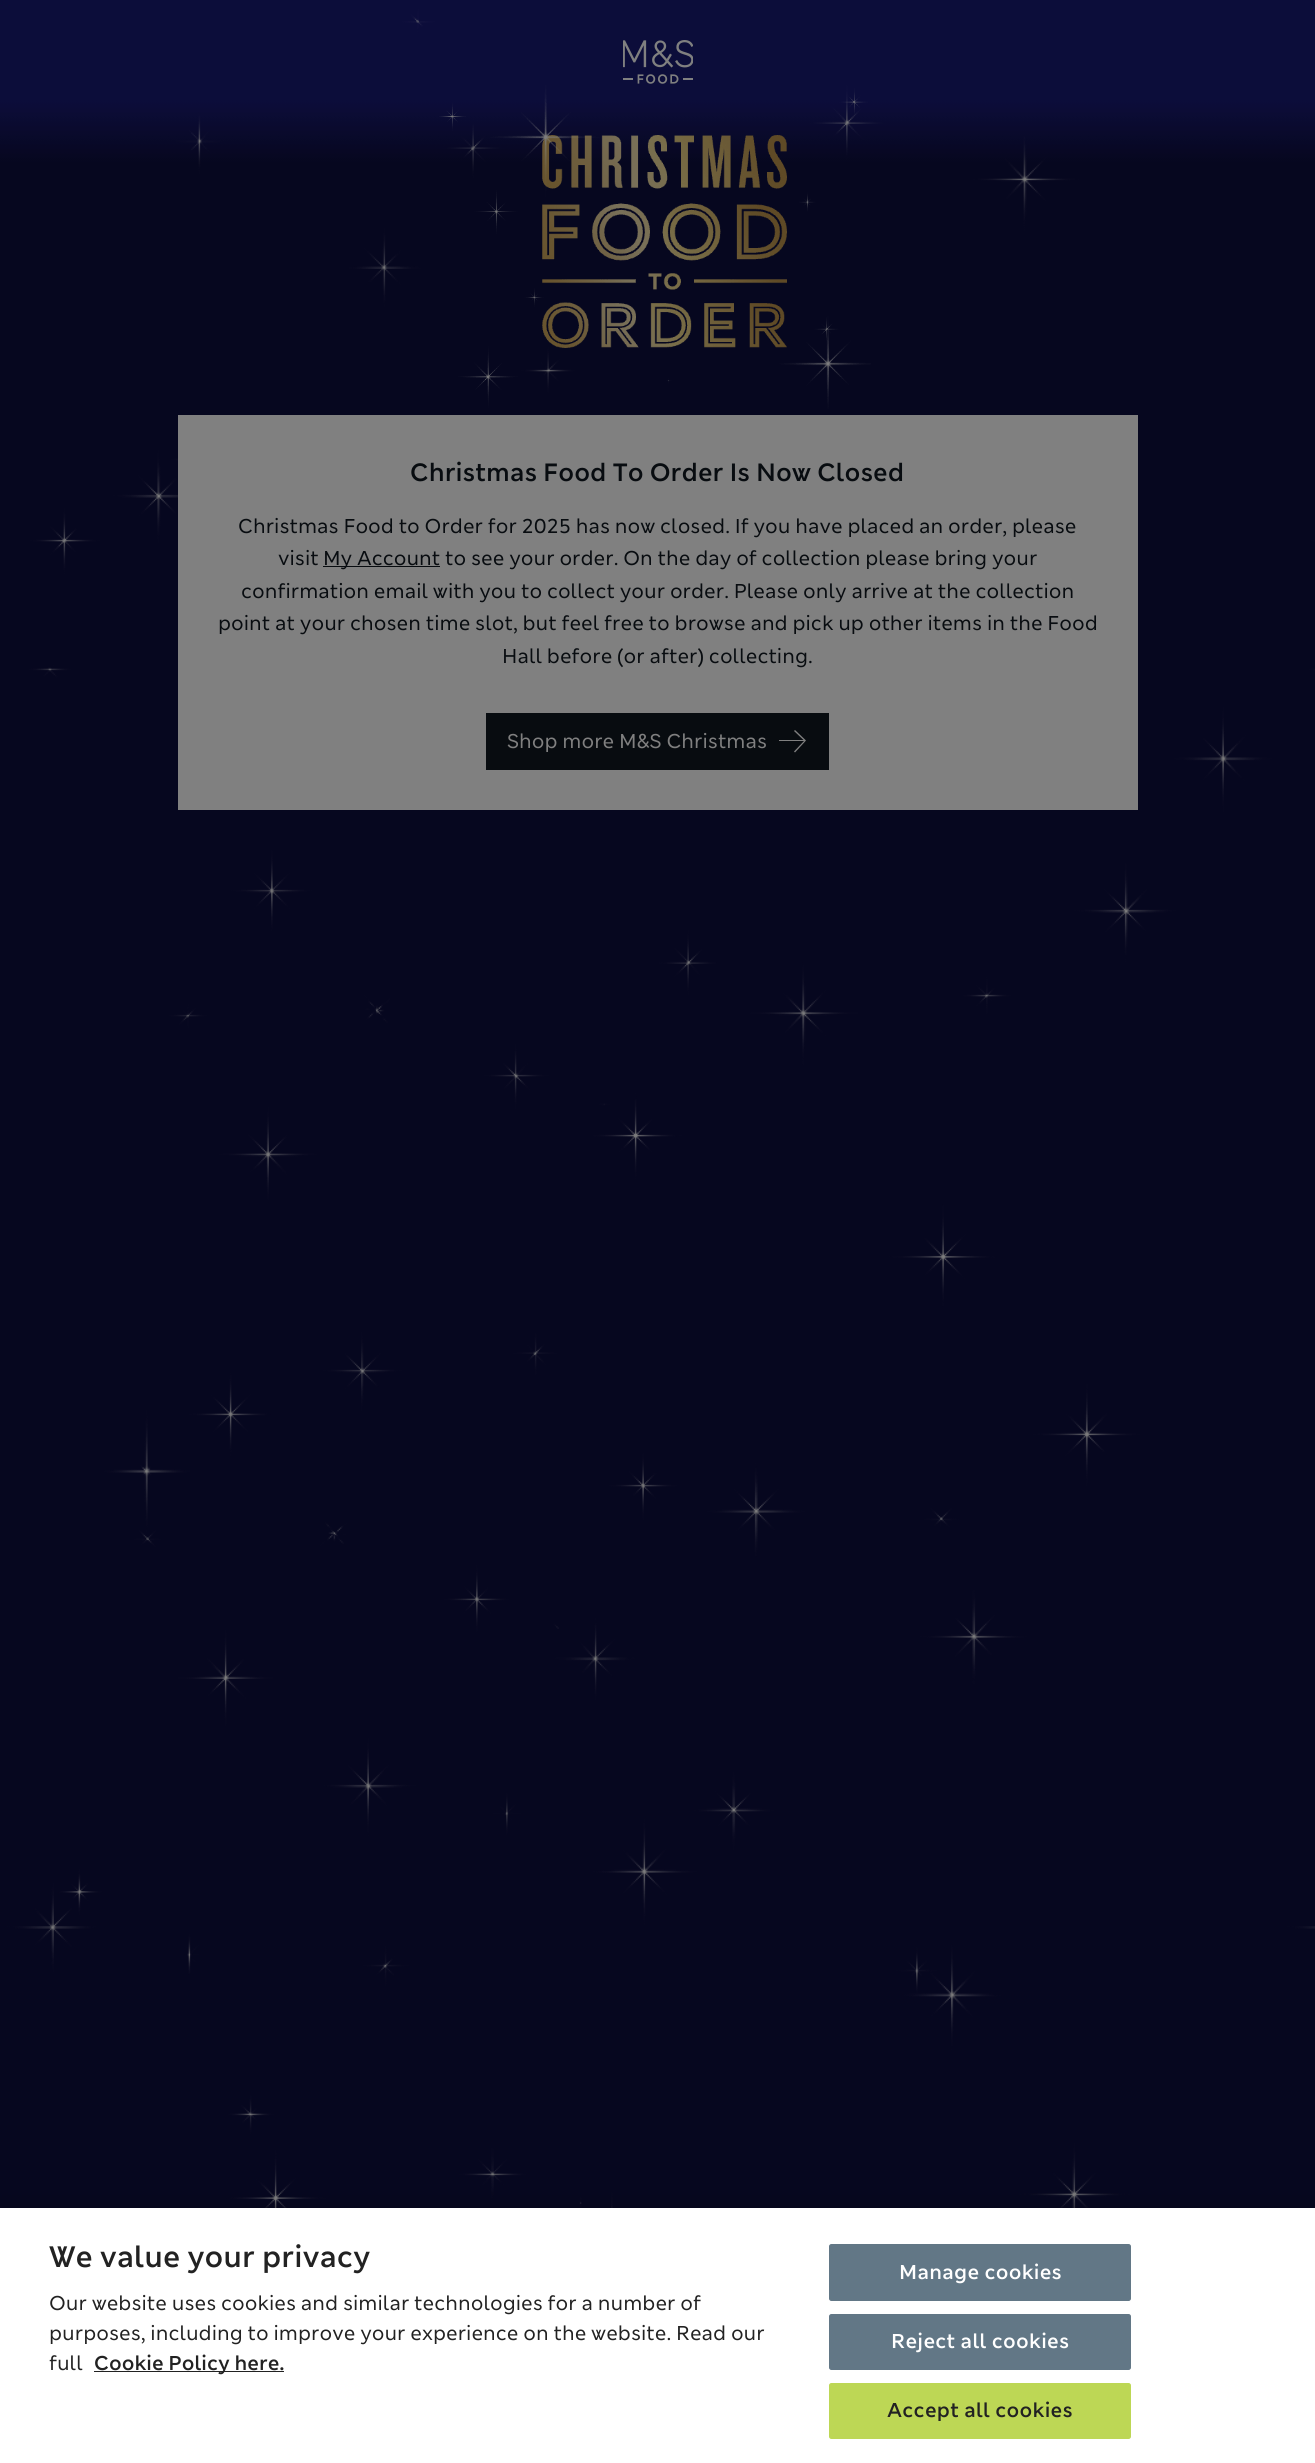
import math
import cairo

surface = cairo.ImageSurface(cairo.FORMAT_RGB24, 1315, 2463)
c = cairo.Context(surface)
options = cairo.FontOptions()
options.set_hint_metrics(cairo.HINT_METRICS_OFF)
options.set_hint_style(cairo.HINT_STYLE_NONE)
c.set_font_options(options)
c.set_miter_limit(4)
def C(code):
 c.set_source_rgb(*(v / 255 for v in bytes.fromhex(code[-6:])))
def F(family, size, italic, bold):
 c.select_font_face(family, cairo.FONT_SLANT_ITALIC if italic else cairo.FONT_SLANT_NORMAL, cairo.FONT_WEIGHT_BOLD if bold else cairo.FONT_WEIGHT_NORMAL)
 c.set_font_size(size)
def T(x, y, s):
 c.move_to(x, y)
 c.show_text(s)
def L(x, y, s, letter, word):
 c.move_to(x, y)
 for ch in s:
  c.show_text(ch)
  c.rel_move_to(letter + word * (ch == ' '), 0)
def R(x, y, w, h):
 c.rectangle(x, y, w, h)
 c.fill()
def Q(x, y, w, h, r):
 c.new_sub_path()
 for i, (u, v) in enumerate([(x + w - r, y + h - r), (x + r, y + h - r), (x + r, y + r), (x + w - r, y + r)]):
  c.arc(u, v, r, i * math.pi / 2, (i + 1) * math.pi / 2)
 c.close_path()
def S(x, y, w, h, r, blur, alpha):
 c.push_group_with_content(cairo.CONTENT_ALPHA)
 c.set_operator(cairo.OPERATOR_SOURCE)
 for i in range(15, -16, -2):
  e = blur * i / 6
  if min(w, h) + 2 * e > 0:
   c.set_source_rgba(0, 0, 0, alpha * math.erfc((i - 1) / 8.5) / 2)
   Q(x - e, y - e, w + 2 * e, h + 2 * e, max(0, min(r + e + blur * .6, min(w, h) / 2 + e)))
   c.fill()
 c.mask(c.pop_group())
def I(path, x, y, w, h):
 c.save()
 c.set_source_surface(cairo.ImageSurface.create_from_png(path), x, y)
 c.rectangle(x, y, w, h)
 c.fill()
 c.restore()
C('ffffff')
c.paint()
I('1.png',0,0,1315,2208)
I('2.png',623,40,70,44)
I('3.png',439,85,432,324)
C('808080')
R(178,415,960,395)
F('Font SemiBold',25,0,0)
C('080c10')
T(410,481,'Christmas Food To Order Is Now Closed')
F('Font',20,0,0)
T(238,533,'Christmas Food to Order for 2025 has now closed. If you have placed an order, please')
T(278,565,'visit')
R(323,566,117,1)
T(323,565,'My Account to see your order. On the day of collection please bring your')
T(241,598,'confirmation email with you to collect your order. Please only arrive at the collection')
T(218,630,'point at your chosen time slot, but feel free to browse and pick up other items in the Food')
T(502,663,'Hall before (or after) collecting.')
R(486,713,343,57)
C('808080')
T(507,748,'Shop more M&S Christmas')
c.set_fill_rule(cairo.FILL_RULE_EVEN_ODD)
c.new_path()
c.move_to(795,730)
c.line_to(806,740.5)
c.line_to(795,752.5)
c.line_to(794,751.5)
c.line_to(804,741)
c.line_to(779,741)
c.line_to(779,740)
c.line_to(803.5,740)
c.line_to(794,731)
c.close_path()
c.fill()
C('000000')
S(0,2208,1315,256,0,11,.2)
C('ffffff')
R(0,2208,1315,255)
F('Font SemiBold',29.5,0,0)
C('222222')
T(49,2267,'We value your privacy')
F('Font',20,0,0)
T(49,2310,'Our website uses cookies and similar technologies for a number of')
T(49,2340,'purposes, including to improve your experience on the website. Read our')
T(49,2370,'full')
R(94,2371,190,1)
F('Font SemiBold',20,0,0)
T(94,2370,'Cookie Policy here.')
C('627786')
Q(829.5,2244.5,301,56,2)
c.fill_preserve()
c.set_line_width(1)
c.stroke()
C('ffffff')
L(899,2279,'Manage cookies',.25,0)
C('627786')
Q(829.5,2314.5,301,55,2)
c.fill_preserve()
c.stroke()
C('ffffff')
L(891,2348,'Reject all cookies',.25,0)
C('bdd755')
Q(829.5,2383.5,301,55,2)
c.fill_preserve()
c.stroke()
C('222222')
L(887,2417,'Accept all cookies',.25,0)
surface.write_to_png('o.png')
